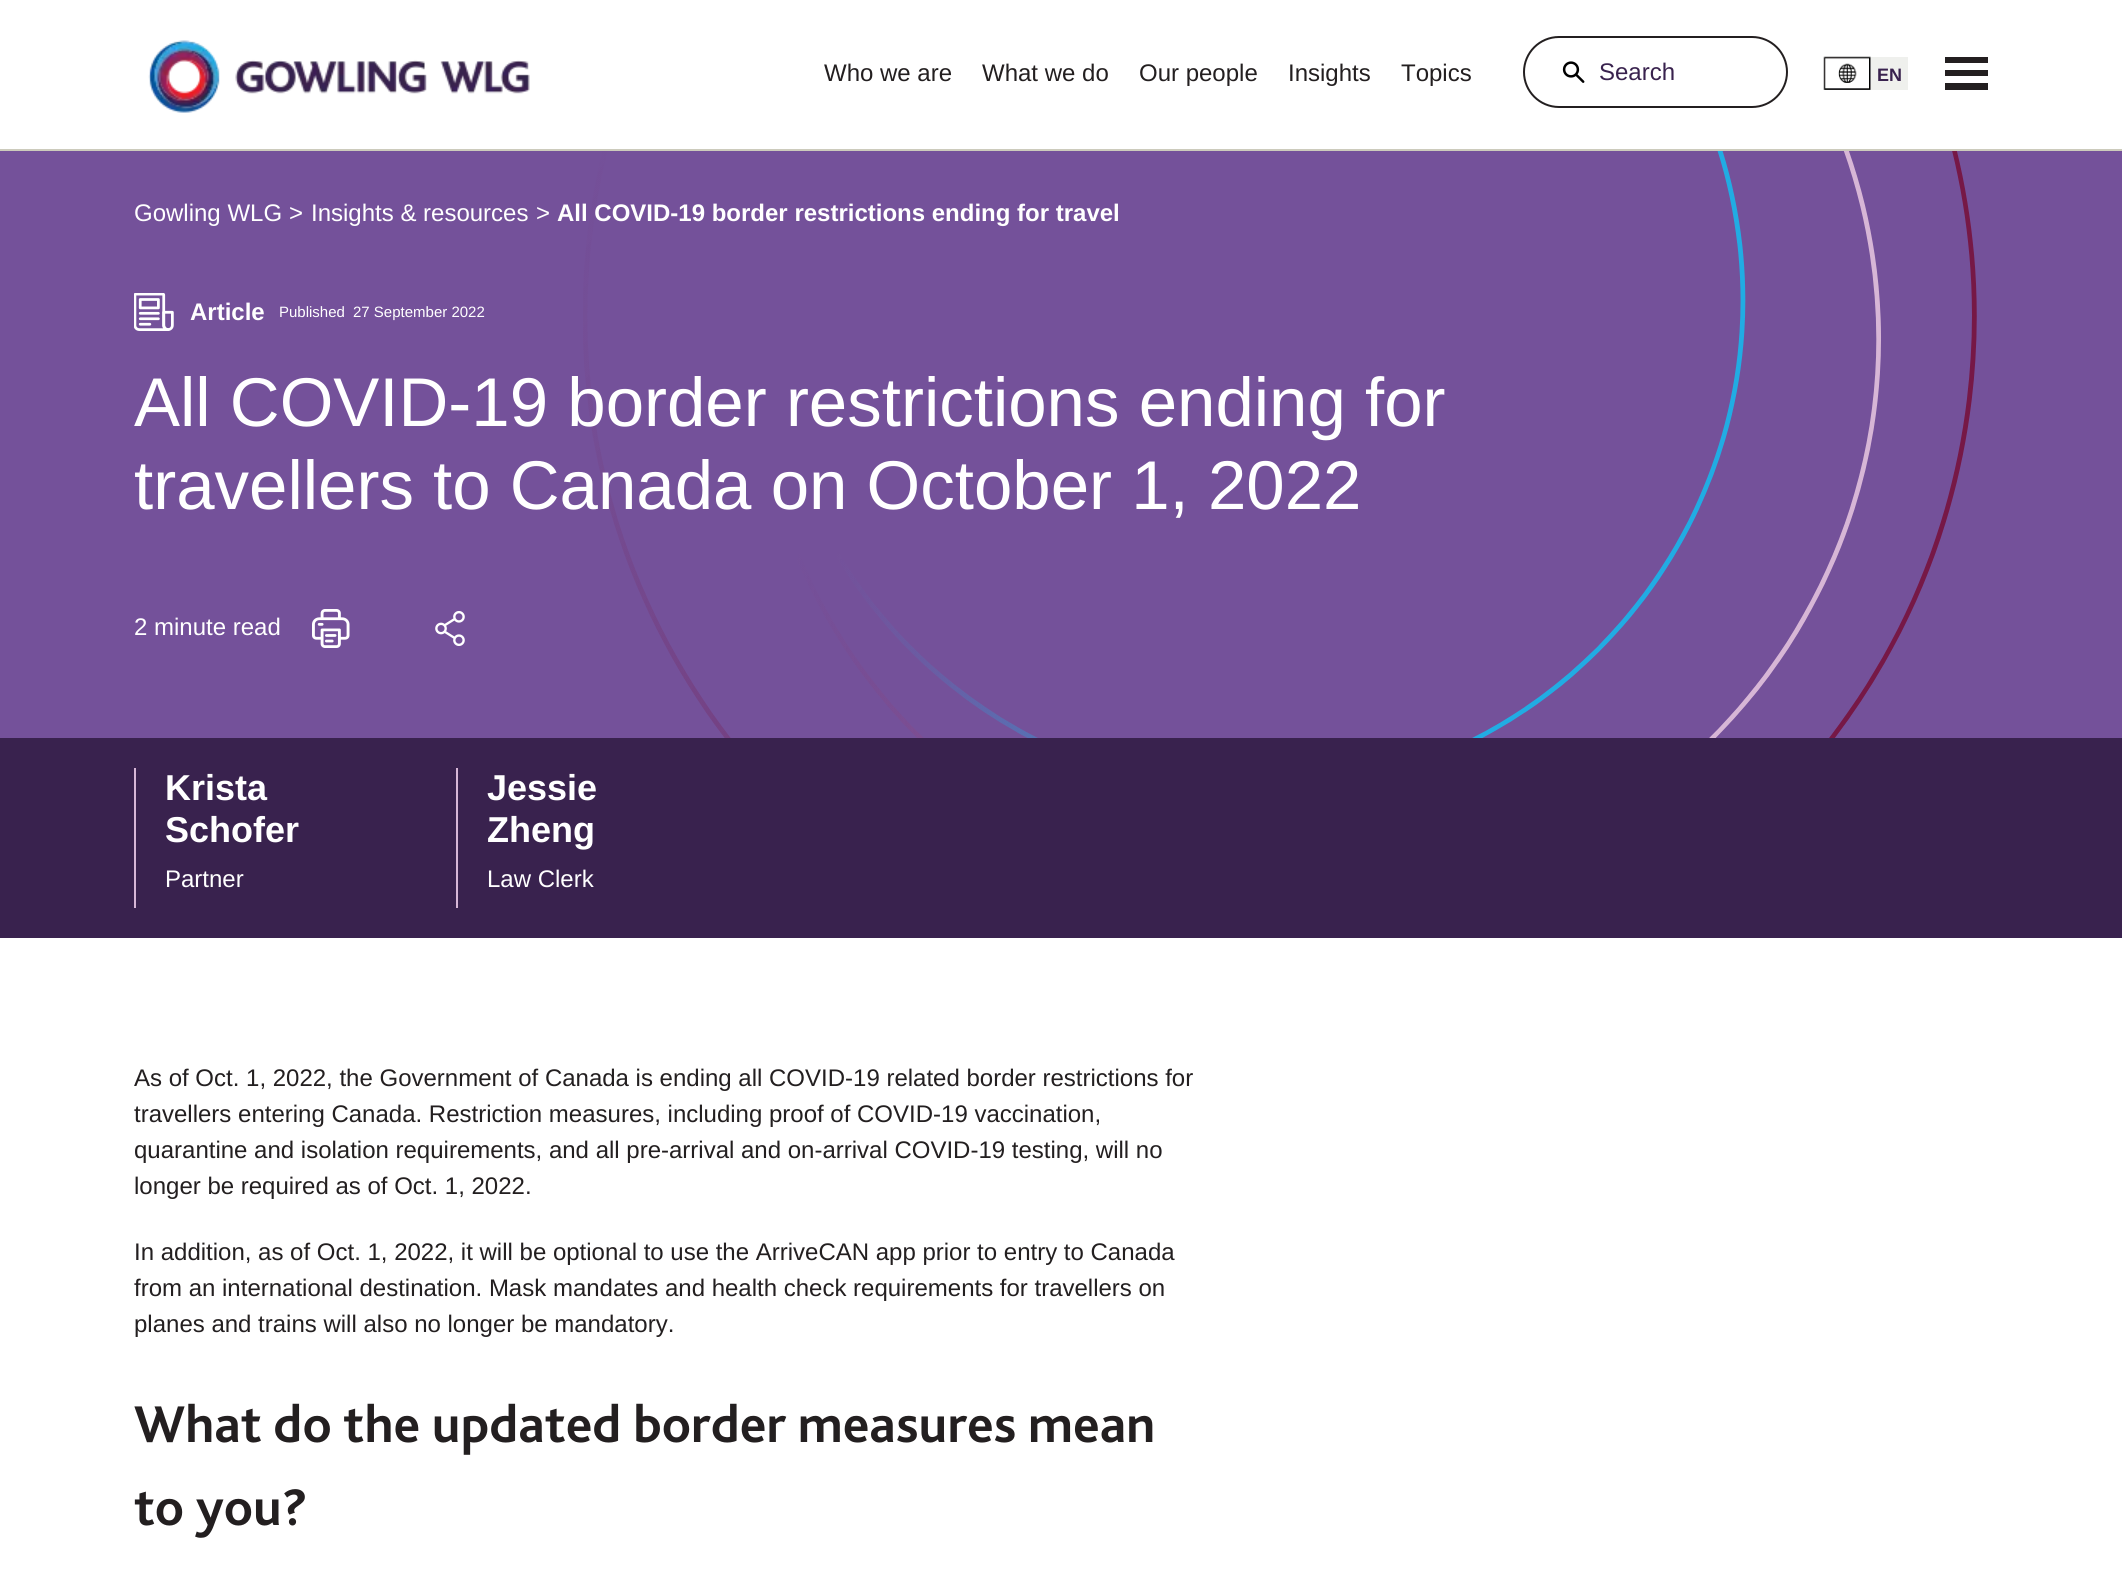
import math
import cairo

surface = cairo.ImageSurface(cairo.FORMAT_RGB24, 2122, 1580)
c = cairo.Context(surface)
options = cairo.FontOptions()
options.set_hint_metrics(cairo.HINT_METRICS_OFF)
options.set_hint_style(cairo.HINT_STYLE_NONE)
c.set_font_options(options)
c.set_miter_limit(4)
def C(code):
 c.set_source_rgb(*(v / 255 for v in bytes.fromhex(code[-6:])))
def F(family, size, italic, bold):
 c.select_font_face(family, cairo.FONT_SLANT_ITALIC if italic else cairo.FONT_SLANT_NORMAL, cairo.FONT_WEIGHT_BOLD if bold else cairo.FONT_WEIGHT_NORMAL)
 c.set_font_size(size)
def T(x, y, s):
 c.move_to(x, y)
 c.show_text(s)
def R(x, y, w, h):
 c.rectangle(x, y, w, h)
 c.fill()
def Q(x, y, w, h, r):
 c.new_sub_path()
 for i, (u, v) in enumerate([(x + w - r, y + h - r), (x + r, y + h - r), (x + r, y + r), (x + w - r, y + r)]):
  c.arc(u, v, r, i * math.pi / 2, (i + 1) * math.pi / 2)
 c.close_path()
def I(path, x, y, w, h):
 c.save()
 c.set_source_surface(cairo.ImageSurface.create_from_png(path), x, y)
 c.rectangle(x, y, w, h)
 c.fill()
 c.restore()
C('ffffff')
c.paint()
C('cccbbc')
R(0,149,2122,2)
I('1.png',148,40,382,73)
F('Liberation Sans',24,0,0)
C('231f20')
T(824,81,'Who we are')
T(982,81,'What we do')
T(1139,81,'Our people')
T(1288,81,'Insights')
T(1401,81,'Topics')
Q(1524,37,263,70,35)
c.stroke()
I('2.png',1562,61,23,22)
C('39224e')
T(1599,80,'Search')
I('3.png',1823,56,48,34)
C('eff0ed')
R(1871,57,37,33)
F('Liberation Sans',18,0,1)
C('39224e')
T(1877,81,'EN')
C('231f20')
c.new_path()
c.move_to(1945,57)
c.line_to(1945,63)
c.line_to(1988,63)
c.line_to(1988,57)
c.close_path()
c.move_to(1945,70)
c.line_to(1945,76)
c.line_to(1988,76)
c.line_to(1988,70)
c.close_path()
c.move_to(1945,83)
c.line_to(1945,90)
c.line_to(1988,90)
c.line_to(1988,83)
c.close_path()
c.fill()
C('74519a')
R(0,151,2122,587)
I('4.png',583,151,1394,587)
F('Liberation Sans',24,0,0)
C('ffffff')
T(134,221,'Gowling WLG')
T(289,221,'>')
T(311,221,'Insights & resources')
T(536,221,'>')
F('Liberation Sans',24,0,1)
T(557,221,'All COVID-19 border restrictions ending for travel')
I('5.png',134,293,40,38)
T(190,320,'Article')
F('Liberation Sans',15,0,0)
T(279,317,'Published')
T(353,317,'27 September 2022')
F('Liberation Sans',69,0,0)
T(134,426,'All COVID-19 border restrictions ending for')
T(134,509,'travellers to Canada on October 1, 2022')
F('Liberation Sans',24,0,0)
T(134,635,'2 minute read')
I('6.png',312,609,38,39)
I('7.png',435,611,30,35)
C('39224e')
R(0,738,2122,200)
C('d7b7d7')
R(134,768,2,140)
F('Liberation Sans',36,0,1)
C('ffffff')
T(165,800,'Krista')
T(165,842,'Schofer')
F('Liberation Sans',24,0,0)
T(165,887,'Partner')
C('d7b7d7')
R(456,768,2,140)
F('Liberation Sans',36,0,1)
C('ffffff')
T(487,800,'Jessie')
T(487,842,'Zheng')
F('Liberation Sans',24,0,0)
T(487,887,'Law Clerk')
C('231f20')
T(134,1086,'As of Oct. 1, 2022, the Government of Canada is ending all COVID-19 related border restrictions for')
T(134,1122,'travellers entering Canada. Restriction measures, including proof of COVID-19 vaccination,')
T(134,1158,'quarantine and isolation requirements, and all pre-arrival and on-arrival COVID-19 testing, will no')
T(134,1194,'longer be required as of Oct. 1, 2022.')
T(134,1260,'In addition, as of Oct. 1, 2022, it will be optional to use the ArriveCAN app prior to entry to Canada')
T(134,1296,'from an international destination. Mask mandates and health check requirements for travellers on')
T(134,1332,'planes and trains will also no longer be mandatory.')
F('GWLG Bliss',54,0,1)
T(134,1442,'What do the updated border measures mean')
T(134,1525,'to you?')
surface.write_to_png('o.png')
